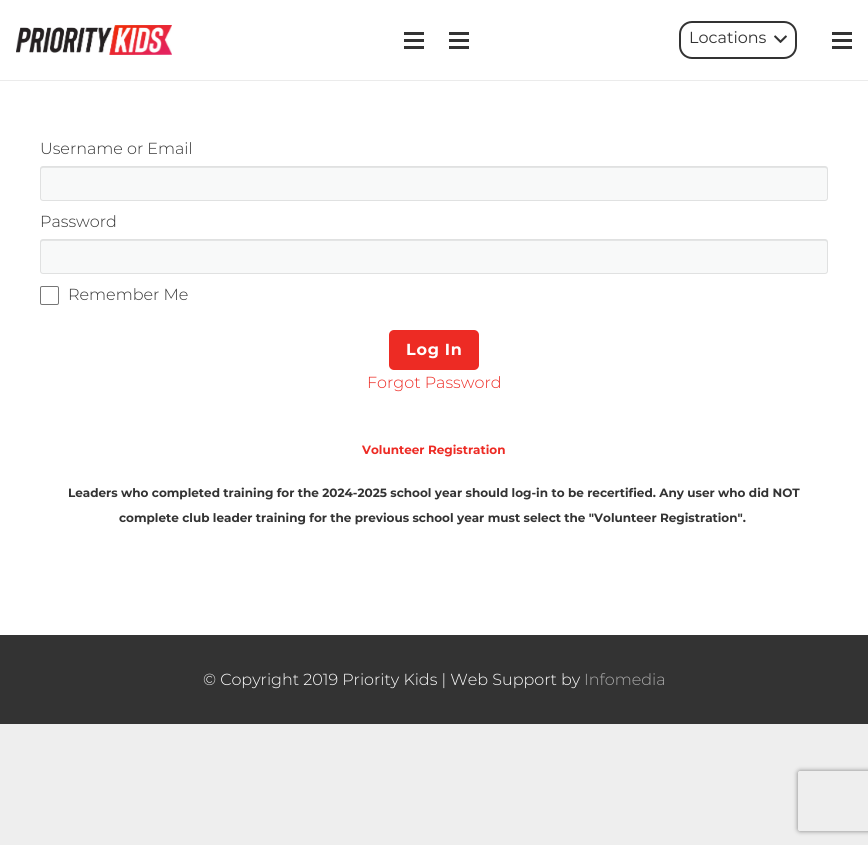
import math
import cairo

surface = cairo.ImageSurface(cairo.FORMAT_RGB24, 868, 845)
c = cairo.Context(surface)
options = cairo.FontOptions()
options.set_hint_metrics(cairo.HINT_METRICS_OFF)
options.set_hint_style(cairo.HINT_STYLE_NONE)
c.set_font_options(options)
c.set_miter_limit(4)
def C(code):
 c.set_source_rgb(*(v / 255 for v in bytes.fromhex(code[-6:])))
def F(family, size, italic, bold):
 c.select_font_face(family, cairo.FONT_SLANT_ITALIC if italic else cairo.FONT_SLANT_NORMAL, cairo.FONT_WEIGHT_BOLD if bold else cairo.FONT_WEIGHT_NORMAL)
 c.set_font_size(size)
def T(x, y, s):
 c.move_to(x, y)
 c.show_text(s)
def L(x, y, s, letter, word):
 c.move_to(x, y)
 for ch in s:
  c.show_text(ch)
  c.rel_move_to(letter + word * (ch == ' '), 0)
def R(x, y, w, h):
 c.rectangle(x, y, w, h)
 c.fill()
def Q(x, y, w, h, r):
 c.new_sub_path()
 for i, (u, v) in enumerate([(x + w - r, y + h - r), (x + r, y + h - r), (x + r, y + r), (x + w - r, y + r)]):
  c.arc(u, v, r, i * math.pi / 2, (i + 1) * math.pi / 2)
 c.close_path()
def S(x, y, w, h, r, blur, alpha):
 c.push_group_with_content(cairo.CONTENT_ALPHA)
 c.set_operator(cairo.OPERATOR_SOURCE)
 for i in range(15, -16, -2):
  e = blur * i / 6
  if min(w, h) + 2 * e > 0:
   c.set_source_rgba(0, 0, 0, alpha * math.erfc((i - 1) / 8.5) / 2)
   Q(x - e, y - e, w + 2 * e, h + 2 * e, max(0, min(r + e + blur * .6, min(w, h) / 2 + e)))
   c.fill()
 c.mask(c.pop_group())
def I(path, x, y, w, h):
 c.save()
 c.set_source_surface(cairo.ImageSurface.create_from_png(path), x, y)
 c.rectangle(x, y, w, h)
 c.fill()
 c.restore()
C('eeeeee')
c.paint()
C('ffffff')
R(0,0,868,635)
C('ebebeb')
R(0,80,868,1)
I('1.png',16,25,156,30)
C('333333')
R(404,39,20,3)
R(404,32,20,3)
R(404,46,20,3)
R(449,39,20,3)
R(449,32,20,3)
R(449,46,20,3)
I('2.png',774,35,13,8)
Q(680,22,116,36,12)
c.stroke()
F('Montserrat',16,0,0)
T(689,43,'Locations')
R(832,39,20,3)
R(832,32,20,3)
R(832,46,20,3)
F('Montserrat Light',16,0,0)
T(40,154,'Username or Email')
C('f8f9f9')
Q(40,166,788,35,3)
c.fill()
C('e4e5e5')
c.new_path()
c.move_to(43,168)
c.line_to(825,168)
c.curve_to(826,168,827,169,827,170)
c.curve_to(827,169,827,167,825,167)
c.line_to(43,167)
c.curve_to(41,167,41,169,41,170)
c.curve_to(41,169,42,168,43,168)
c.close_path()
c.fill()
Q(40.5,166.5,787,34,2.5)
c.set_source_rgba(0,0,0,0.1)
c.set_line_width(1)
c.stroke()
C('333333')
T(40,227,'Password')
C('f8f9f9')
Q(40,239,788,35,3)
c.fill()
C('e4e5e5')
c.new_path()
c.move_to(43,241)
c.line_to(825,241)
c.curve_to(826,241,827,242,827,243)
c.curve_to(827,242,827,240,825,240)
c.line_to(43,240)
c.curve_to(41,240,41,242,41,243)
c.curve_to(41,242,42,241,43,241)
c.close_path()
c.fill()
Q(40.5,239.5,787,34,2.5)
c.set_source_rgba(0,0,0,0.1)
c.stroke()
Q(40.5,286.5,18,18,1.5)
C('767676')
c.stroke()
C('333333')
T(68,300,'Remember Me')
C('ed2b24')
Q(389,330,90,40,5)
c.fill()
F('Montserrat',16,0,1)
C('ffffff')
L(406,355,'Log In',.75,0)
F('Montserrat Light',16,0,0)
C('ed2b24')
T(367,388,'Forgot Password')
F('Montserrat',12,0,1)
T(362,454,'Volunteer Registration')
C('333333')
T(68,497,'Leaders who completed training for the 2024-2025 school year should log-in to be recertified. Any user who did NOT')
T(119,522,'complete club leader training for the previous school year must select the "Volunteer Registration".')
R(0,635,868,89)
F('Montserrat Light',16,0,0)
C('ffffff')
T(203,685,'© Copyright 2019 Priority Kids | Web Support by')
C('aaaaaa')
T(584,685,'Infomedia')
c.save()
c.set_fill_rule(cairo.FILL_RULE_EVEN_ODD)
c.new_path()
c.move_to(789,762)
c.line_to(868,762)
c.line_to(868,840)
c.line_to(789,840)
c.close_path()
c.move_to(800,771)
c.line_to(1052,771)
c.curve_to(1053,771,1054,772,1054,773)
c.line_to(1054,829)
c.curve_to(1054,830,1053,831,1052,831)
c.line_to(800,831)
c.curve_to(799,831,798,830,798,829)
c.line_to(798,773)
c.curve_to(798,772,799,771,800,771)
c.close_path()
c.clip()
C('808080')
S(798,771,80,60,2,2.5,1)
c.restore()
surface.write_to_png('o.png')
